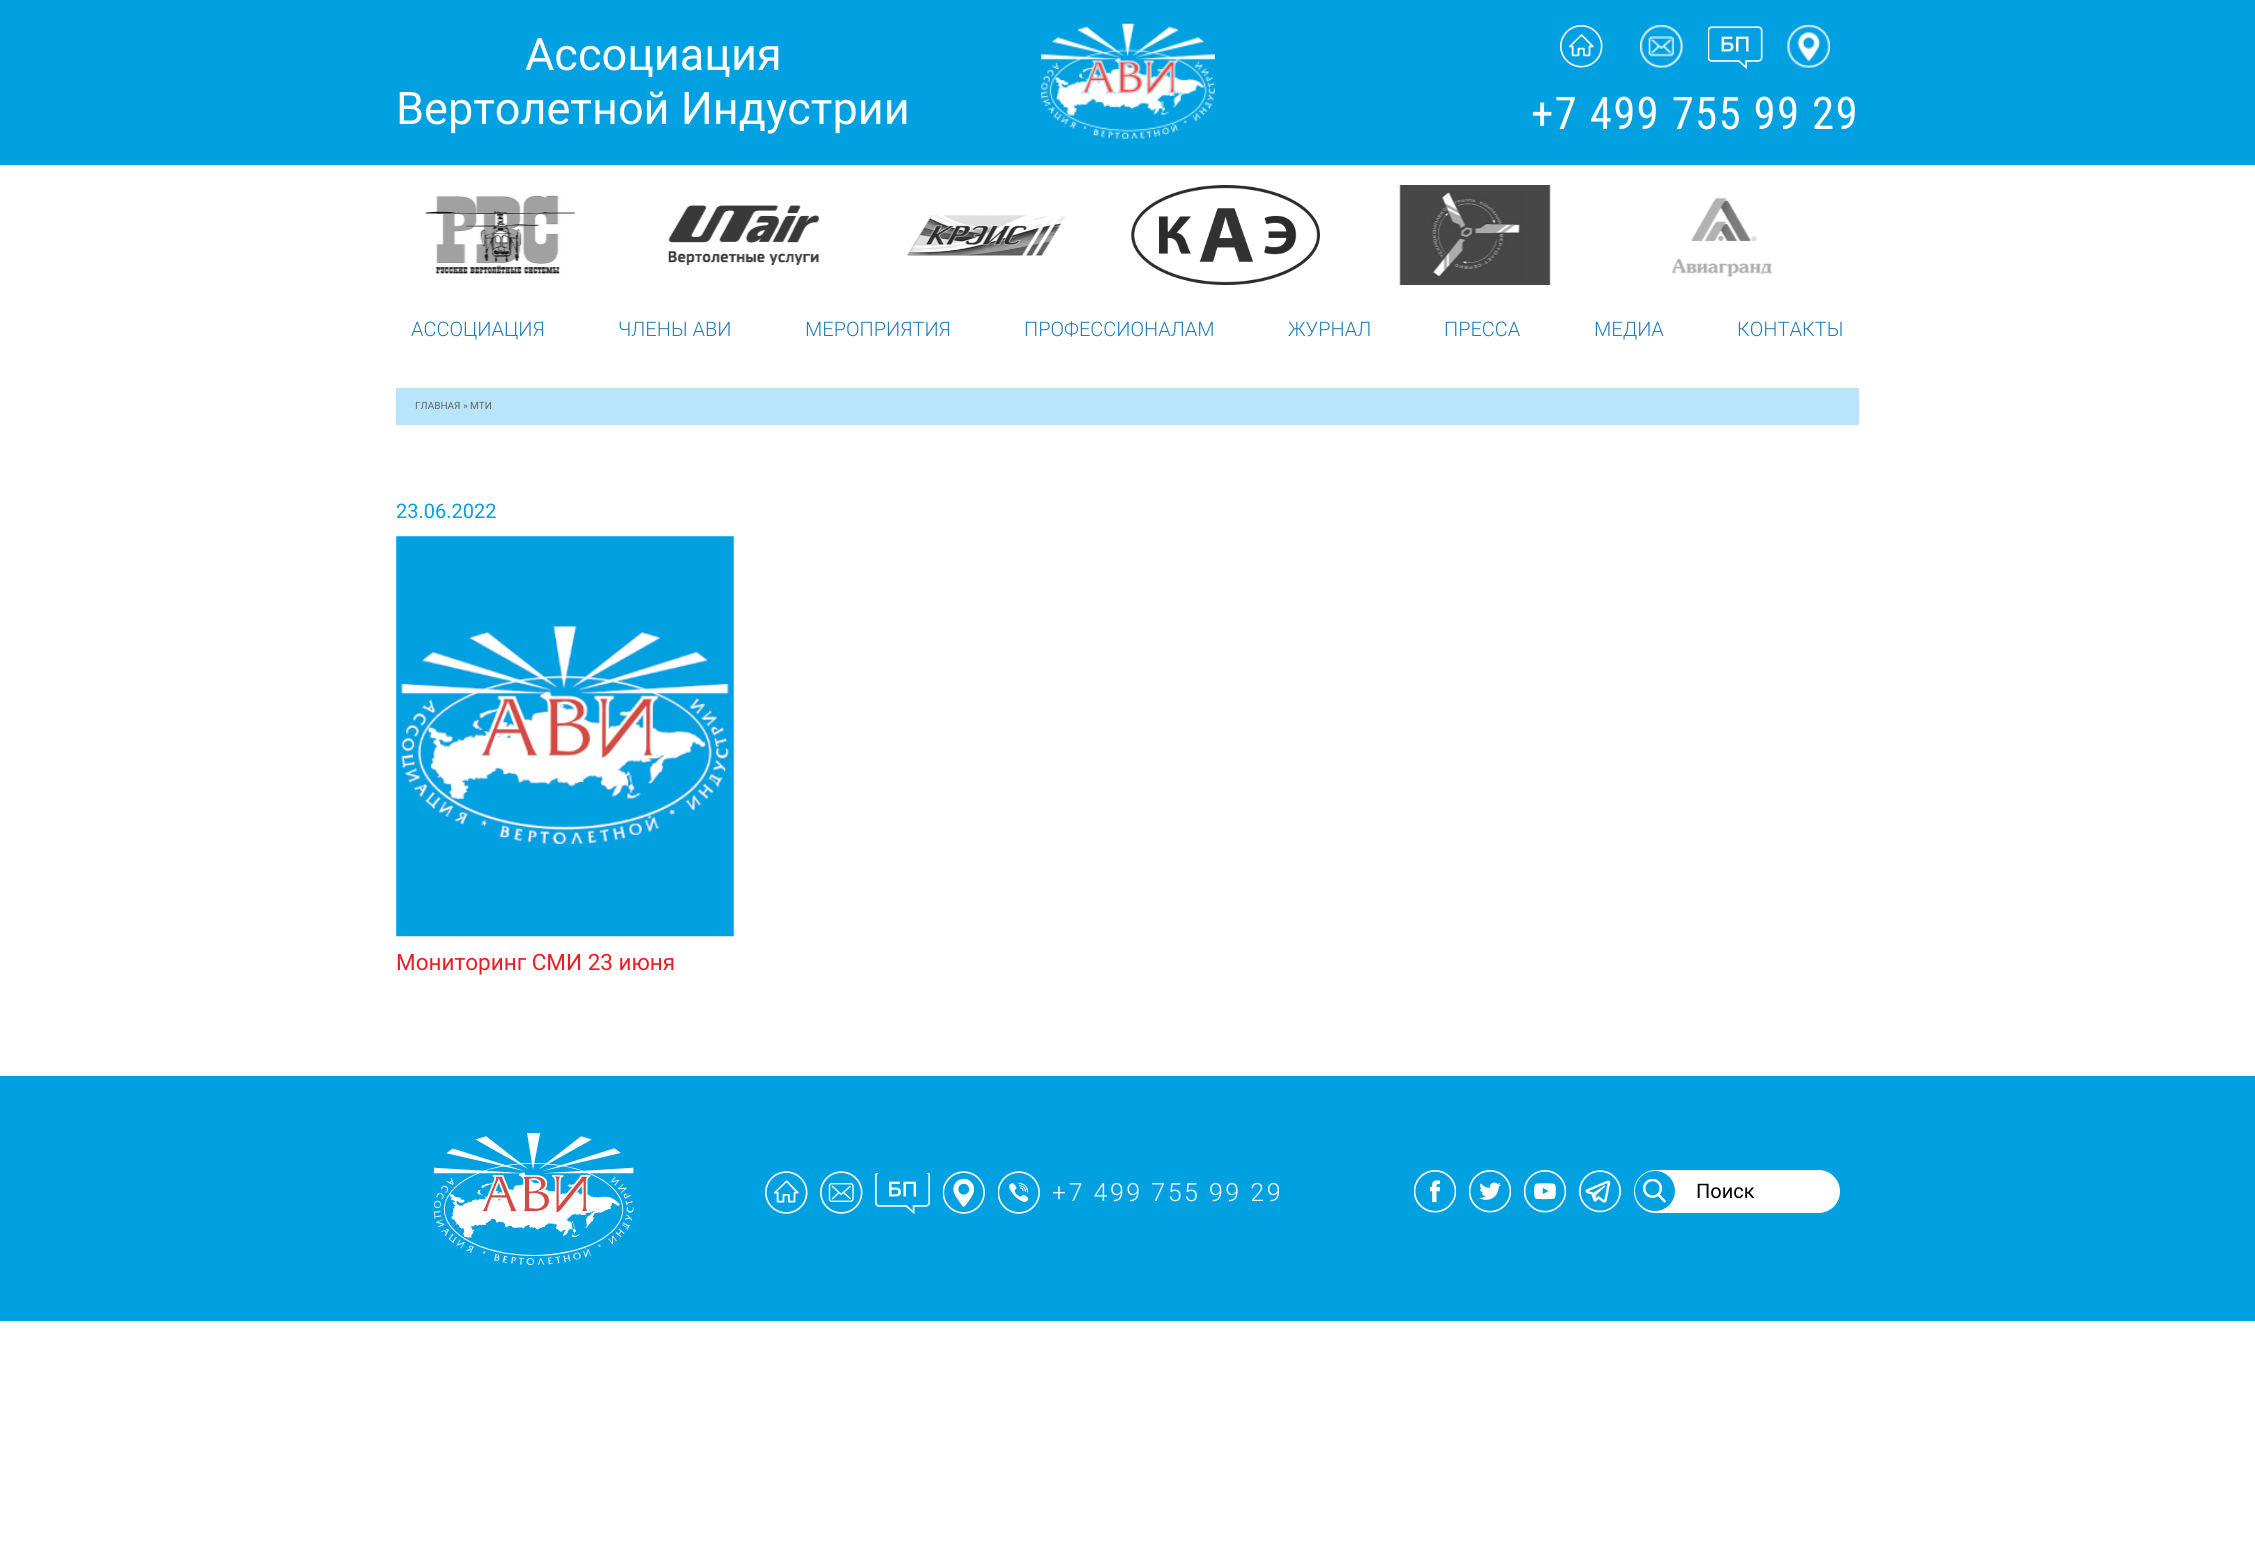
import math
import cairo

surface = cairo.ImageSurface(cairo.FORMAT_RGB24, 2255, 1558)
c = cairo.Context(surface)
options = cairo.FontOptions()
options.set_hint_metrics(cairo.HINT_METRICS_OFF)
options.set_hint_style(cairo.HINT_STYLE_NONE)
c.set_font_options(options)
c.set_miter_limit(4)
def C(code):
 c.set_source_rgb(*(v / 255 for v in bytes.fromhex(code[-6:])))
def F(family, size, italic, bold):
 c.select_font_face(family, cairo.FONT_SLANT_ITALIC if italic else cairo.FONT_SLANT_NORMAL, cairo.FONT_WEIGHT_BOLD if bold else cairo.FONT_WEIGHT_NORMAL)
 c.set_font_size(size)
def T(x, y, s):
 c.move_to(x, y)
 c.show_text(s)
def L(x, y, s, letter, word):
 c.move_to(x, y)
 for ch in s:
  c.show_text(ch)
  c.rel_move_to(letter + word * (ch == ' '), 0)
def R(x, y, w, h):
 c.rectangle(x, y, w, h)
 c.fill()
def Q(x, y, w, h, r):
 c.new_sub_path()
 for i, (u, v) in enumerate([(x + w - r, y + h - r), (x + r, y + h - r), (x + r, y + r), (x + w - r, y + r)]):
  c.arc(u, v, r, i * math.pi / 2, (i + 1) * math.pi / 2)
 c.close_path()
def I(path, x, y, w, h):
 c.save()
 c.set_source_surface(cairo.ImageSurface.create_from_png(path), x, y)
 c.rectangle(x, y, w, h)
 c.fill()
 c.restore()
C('ffffff')
c.paint()
C('00a0e1')
R(0,0,2255,165)
F('Roboto',45,0,0)
C('ffffff')
T(525,70,'Ассоциация')
T(396,124,'Вертолетной Индустрии')
I('1.png',1041,23,174,116)
I('2.png',1560,25,43,43)
I('3.png',1640,25,43,43)
I('4.png',1708,26,55,43)
I('5.png',1787,25,43,43)
F('Roboto Condensed',45,0,0)
L(1531,129,'+7 499 755 99 29',1.25,0)
I('6.png',424,195,152,80)
I('7.png',668,205,151,60)
I('8.png',907,215,159,41)
I('9.png',1131,185,189,100)
I('10.png',1399,185,152,100)
I('11.png',1671,197,101,80)
F('Roboto Light',20,0,0)
C('217db9')
T(411,336,'АССОЦИАЦИЯ')
T(618,336,'ЧЛЕНЫ АВИ')
T(805,336,'МЕРОПРИЯТИЯ')
T(1024,336,'ПРОФЕССИОНАЛАМ')
T(1288,336,'ЖУРНАЛ')
T(1444,336,'ПРЕССА')
T(1594,336,'МЕДИА')
T(1737,336,'КОНТАКТЫ')
C('b9e5fb')
R(396,388,1463,37)
F('Roboto',10,0,0)
C('636466')
T(415,409,'ГЛАВНАЯ » МТИ')
F('Roboto',20,0,0)
C('00a0e1')
T(396,518,'23.06.2022')
I('12.png',396,536,338,401)
F('Roboto',22.5,0,0)
C('ed1c24')
T(396,970,'Мониторинг СМИ 23 июня')
C('00a0e1')
R(0,1076,2255,245)
I('13.png',434,1133,200,132)
I('14.png',765,1171,43,43)
I('15.png',820,1171,43,43)
I('16.png',875,1173,55,42)
I('17.png',943,1171,42,43)
I('18.png',998,1171,42,43)
F('Roboto Light',25,0,0)
C('ffffff')
L(1052,1201,'+7 499 755 99 29',2.5,0)
I('19.png',1414,1170,42,43)
I('20.png',1469,1170,42,43)
I('21.png',1524,1170,42,43)
I('22.png',1578,1170,44,43)
Q(1634,1170,206,43,21.5)
c.fill()
C('00a0e1')
c.arc(1655,1191,20,0,2 * math.pi)
c.fill()
I('23.png',1643,1179,23,24)
F('Roboto',20,0,0)
C('000000')
T(1696,1198,'Поиск')
surface.write_to_png('o.png')
